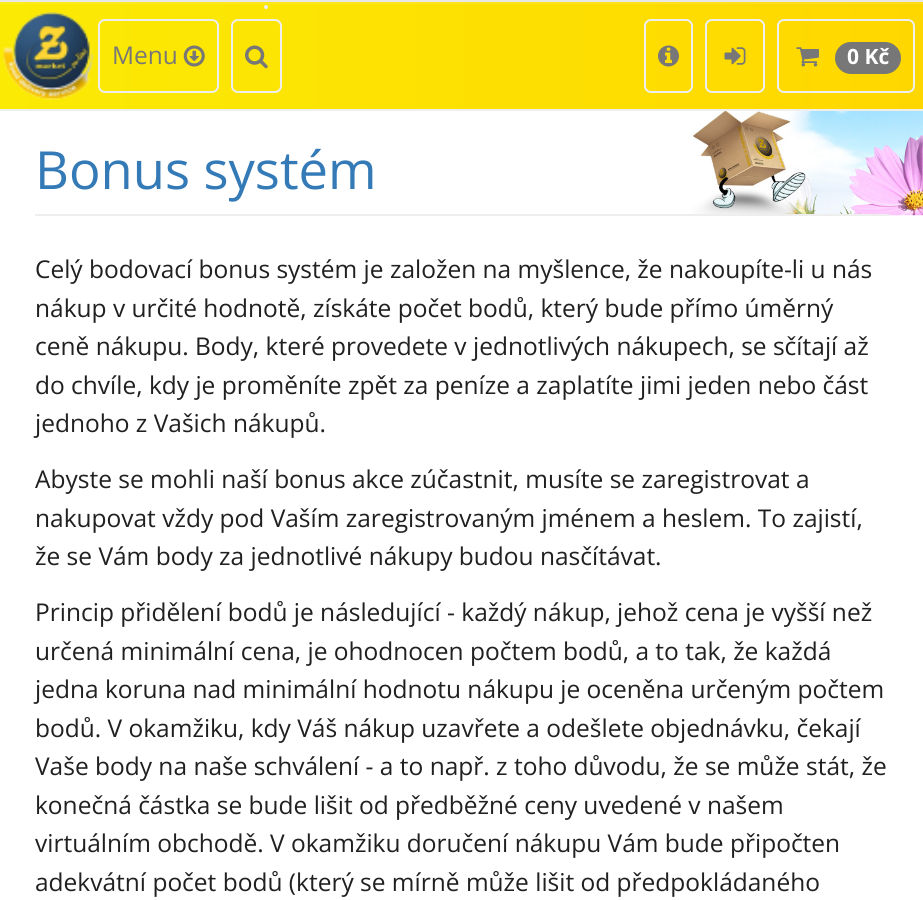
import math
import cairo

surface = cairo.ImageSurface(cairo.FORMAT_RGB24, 923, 900)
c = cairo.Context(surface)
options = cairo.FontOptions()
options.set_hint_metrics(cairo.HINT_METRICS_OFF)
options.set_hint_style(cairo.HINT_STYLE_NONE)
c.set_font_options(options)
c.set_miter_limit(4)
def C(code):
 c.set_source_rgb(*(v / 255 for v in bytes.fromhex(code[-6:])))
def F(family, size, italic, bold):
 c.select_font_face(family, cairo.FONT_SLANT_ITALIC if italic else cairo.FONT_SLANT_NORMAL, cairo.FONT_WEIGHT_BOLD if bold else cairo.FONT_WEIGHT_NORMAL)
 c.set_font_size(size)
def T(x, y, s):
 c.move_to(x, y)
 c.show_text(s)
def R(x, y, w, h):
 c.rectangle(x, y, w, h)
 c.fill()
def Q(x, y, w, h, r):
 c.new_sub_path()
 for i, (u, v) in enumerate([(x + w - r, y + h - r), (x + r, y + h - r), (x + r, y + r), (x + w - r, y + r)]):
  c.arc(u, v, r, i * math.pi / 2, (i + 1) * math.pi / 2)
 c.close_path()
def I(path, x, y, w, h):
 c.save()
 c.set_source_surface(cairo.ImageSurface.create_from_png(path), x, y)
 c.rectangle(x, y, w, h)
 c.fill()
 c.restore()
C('ffffff')
c.paint()
gradient = cairo.LinearGradient(0,54,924,54)
gradient.add_color_stop_rgba(0,0.984,0.918,0.016,1)
gradient.add_color_stop_rgba(1,1,0.843,0,1)
c.set_source(gradient)
R(0,4,923,105)
gradient = cairo.LinearGradient(0,54,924,54)
gradient.add_color_stop_rgba(0,0.984,0.925,0.114,1)
gradient.add_color_stop_rgba(1,1,0.859,0.102,1)
c.set_source(gradient)
R(0,2,923,2)
C('eeeeee')
R(0,109,923,2)
C('e7e7e7')
R(0,0,923,2)
C('eeeeee')
c.arc(266,7,2,0,2 * math.pi)
c.fill()
I('1.png',3,12,91,88)
Q(99,20,119,72,6)
c.stroke()
F('Open Sans',24.5,0,0)
C('777777')
T(112,64,'Menu')
I('2.png',183,45,22,22)
Q(232,20,49,72,6)
C('eeeeee')
c.stroke()
I('3.png',245,45,23,24)
Q(645,20,47,72,6)
c.stroke()
I('4.png',658,45,21,22)
Q(706,20,58,72,6)
c.stroke()
I('5.png',724,47,22,18)
Q(778,20,136,72,6)
c.stroke()
I('6.png',796,47,23,20)
C('777777')
Q(835,42,66,32,16)
c.fill()
F('Open Sans',21,0,1)
C('ffffff')
T(847,64,'0 Kč')
I('7.png',692,111,231,105)
C('eeeeee')
R(35,214,854,2)
F('Open Sans',52.5,0,0)
C('337ab7')
T(35,189,'Bonus systém')
F('Open Sans',24.5,0,0)
C('202020')
T(35,278,'Celý bodovací bonus systém je založen na myšlence, že nakoupíte-li u nás')
T(35,317,'nákup v určité hodnotě, získáte počet bodů, který bude přímo úměrný')
T(35,355,'ceně nákupu. Body, které provedete v jednotlivých nákupech, se sčítají až')
T(35,394,'do chvíle, kdy je proměníte zpět za peníze a zaplatíte jimi jeden nebo část')
T(35,432,'jednoho z Vašich nákupů.')
T(35,488,'Abyste se mohli naší bonus akce zúčastnit, musíte se zaregistrovat a')
T(35,527,'nakupovat vždy pod Vaším zaregistrovaným jménem a heslem. To zajistí,')
T(35,565,'že se Vám body za jednotlivé nákupy budou nasčítávat.')
T(35,621,'Princip přidělení bodů je následující - každý nákup, jehož cena je vyšší než')
T(35,660,'určená minimální cena, je ohodnocen počtem bodů, a to tak, že každá')
T(35,698,'jedna koruna nad minimální hodnotu nákupu je oceněna určeným počtem')
T(35,737,'bodů. V okamžiku, kdy Váš nákup uzavřete a odešlete objednávku, čekají')
T(35,775,'Vaše body na naše schválení - a to např. z toho důvodu, že se může stát, že')
T(35,814,'konečná částka se bude lišit od předběžné ceny uvedené v našem')
T(35,852,'virtuálním obchodě. V okamžiku doručení nákupu Vám bude připočten')
T(35,891,'adekvátní počet bodů (který se mírně může lišit od předpokládaného')
surface.write_to_png('o.png')
